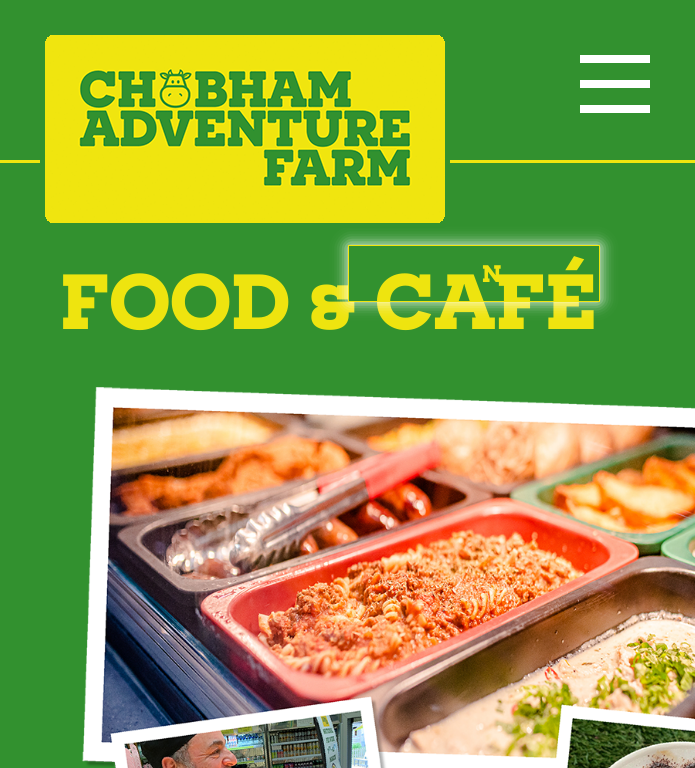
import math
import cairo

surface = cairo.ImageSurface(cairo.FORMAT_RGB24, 695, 768)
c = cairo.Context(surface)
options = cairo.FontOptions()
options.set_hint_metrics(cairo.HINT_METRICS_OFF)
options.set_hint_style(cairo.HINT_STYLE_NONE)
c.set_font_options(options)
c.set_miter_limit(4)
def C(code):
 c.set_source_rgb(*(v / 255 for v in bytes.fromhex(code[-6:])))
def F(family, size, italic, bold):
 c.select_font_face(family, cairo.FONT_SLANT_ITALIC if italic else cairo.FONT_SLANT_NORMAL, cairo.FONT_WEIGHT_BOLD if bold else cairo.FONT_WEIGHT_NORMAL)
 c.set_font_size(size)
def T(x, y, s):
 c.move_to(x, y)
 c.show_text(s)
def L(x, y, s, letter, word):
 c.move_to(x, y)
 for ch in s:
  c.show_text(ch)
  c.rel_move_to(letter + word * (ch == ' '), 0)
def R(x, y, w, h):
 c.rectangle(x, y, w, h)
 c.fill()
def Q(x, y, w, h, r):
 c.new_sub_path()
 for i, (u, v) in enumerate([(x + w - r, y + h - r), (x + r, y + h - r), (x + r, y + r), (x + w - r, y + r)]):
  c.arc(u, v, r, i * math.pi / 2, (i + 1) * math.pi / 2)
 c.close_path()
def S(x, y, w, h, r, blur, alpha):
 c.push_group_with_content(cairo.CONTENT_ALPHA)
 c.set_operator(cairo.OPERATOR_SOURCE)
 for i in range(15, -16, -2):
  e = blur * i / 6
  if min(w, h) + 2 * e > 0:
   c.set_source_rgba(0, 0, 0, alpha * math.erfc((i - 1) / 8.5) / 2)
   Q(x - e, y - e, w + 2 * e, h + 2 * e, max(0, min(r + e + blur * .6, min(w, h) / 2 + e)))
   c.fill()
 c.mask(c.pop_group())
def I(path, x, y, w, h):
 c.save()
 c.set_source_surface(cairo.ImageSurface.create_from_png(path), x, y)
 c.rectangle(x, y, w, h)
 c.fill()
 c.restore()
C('32912f')
c.paint()
F('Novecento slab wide',78,0,1)
C('eee40f')
T(60,329,'FOOD & CAFÉ')
I('1.png',82,387,613,381)
C('f0e50f')
R(0,160,695,3)
c.save()
c.set_fill_rule(cairo.FILL_RULE_EVEN_ODD)
c.new_path()
c.move_to(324,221)
c.line_to(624,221)
c.line_to(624,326)
c.line_to(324,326)
c.close_path()
c.move_to(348,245)
c.line_to(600,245)
c.line_to(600,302)
c.line_to(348,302)
c.close_path()
c.clip()
C('ffffff')
S(348,245,252,57,0,7.5,1)
c.restore()
Q(42.5,32.5,405,193,5.5)
C('32912f')
c.set_line_width(5)
c.stroke()
I('2.png',45,35,400,188)
C('ffffff')
R(580,55,70,8)
R(580,80,70,8)
R(580,105,70,8)
c.rectangle(348.5,245.5,251,56)
C('f0e50f')
c.set_line_width(1)
c.stroke()
F('Novecento slab wide',24,0,1)
C('eee40f')
L(482,282,'N',1,0)
surface.write_to_png('o.png')
